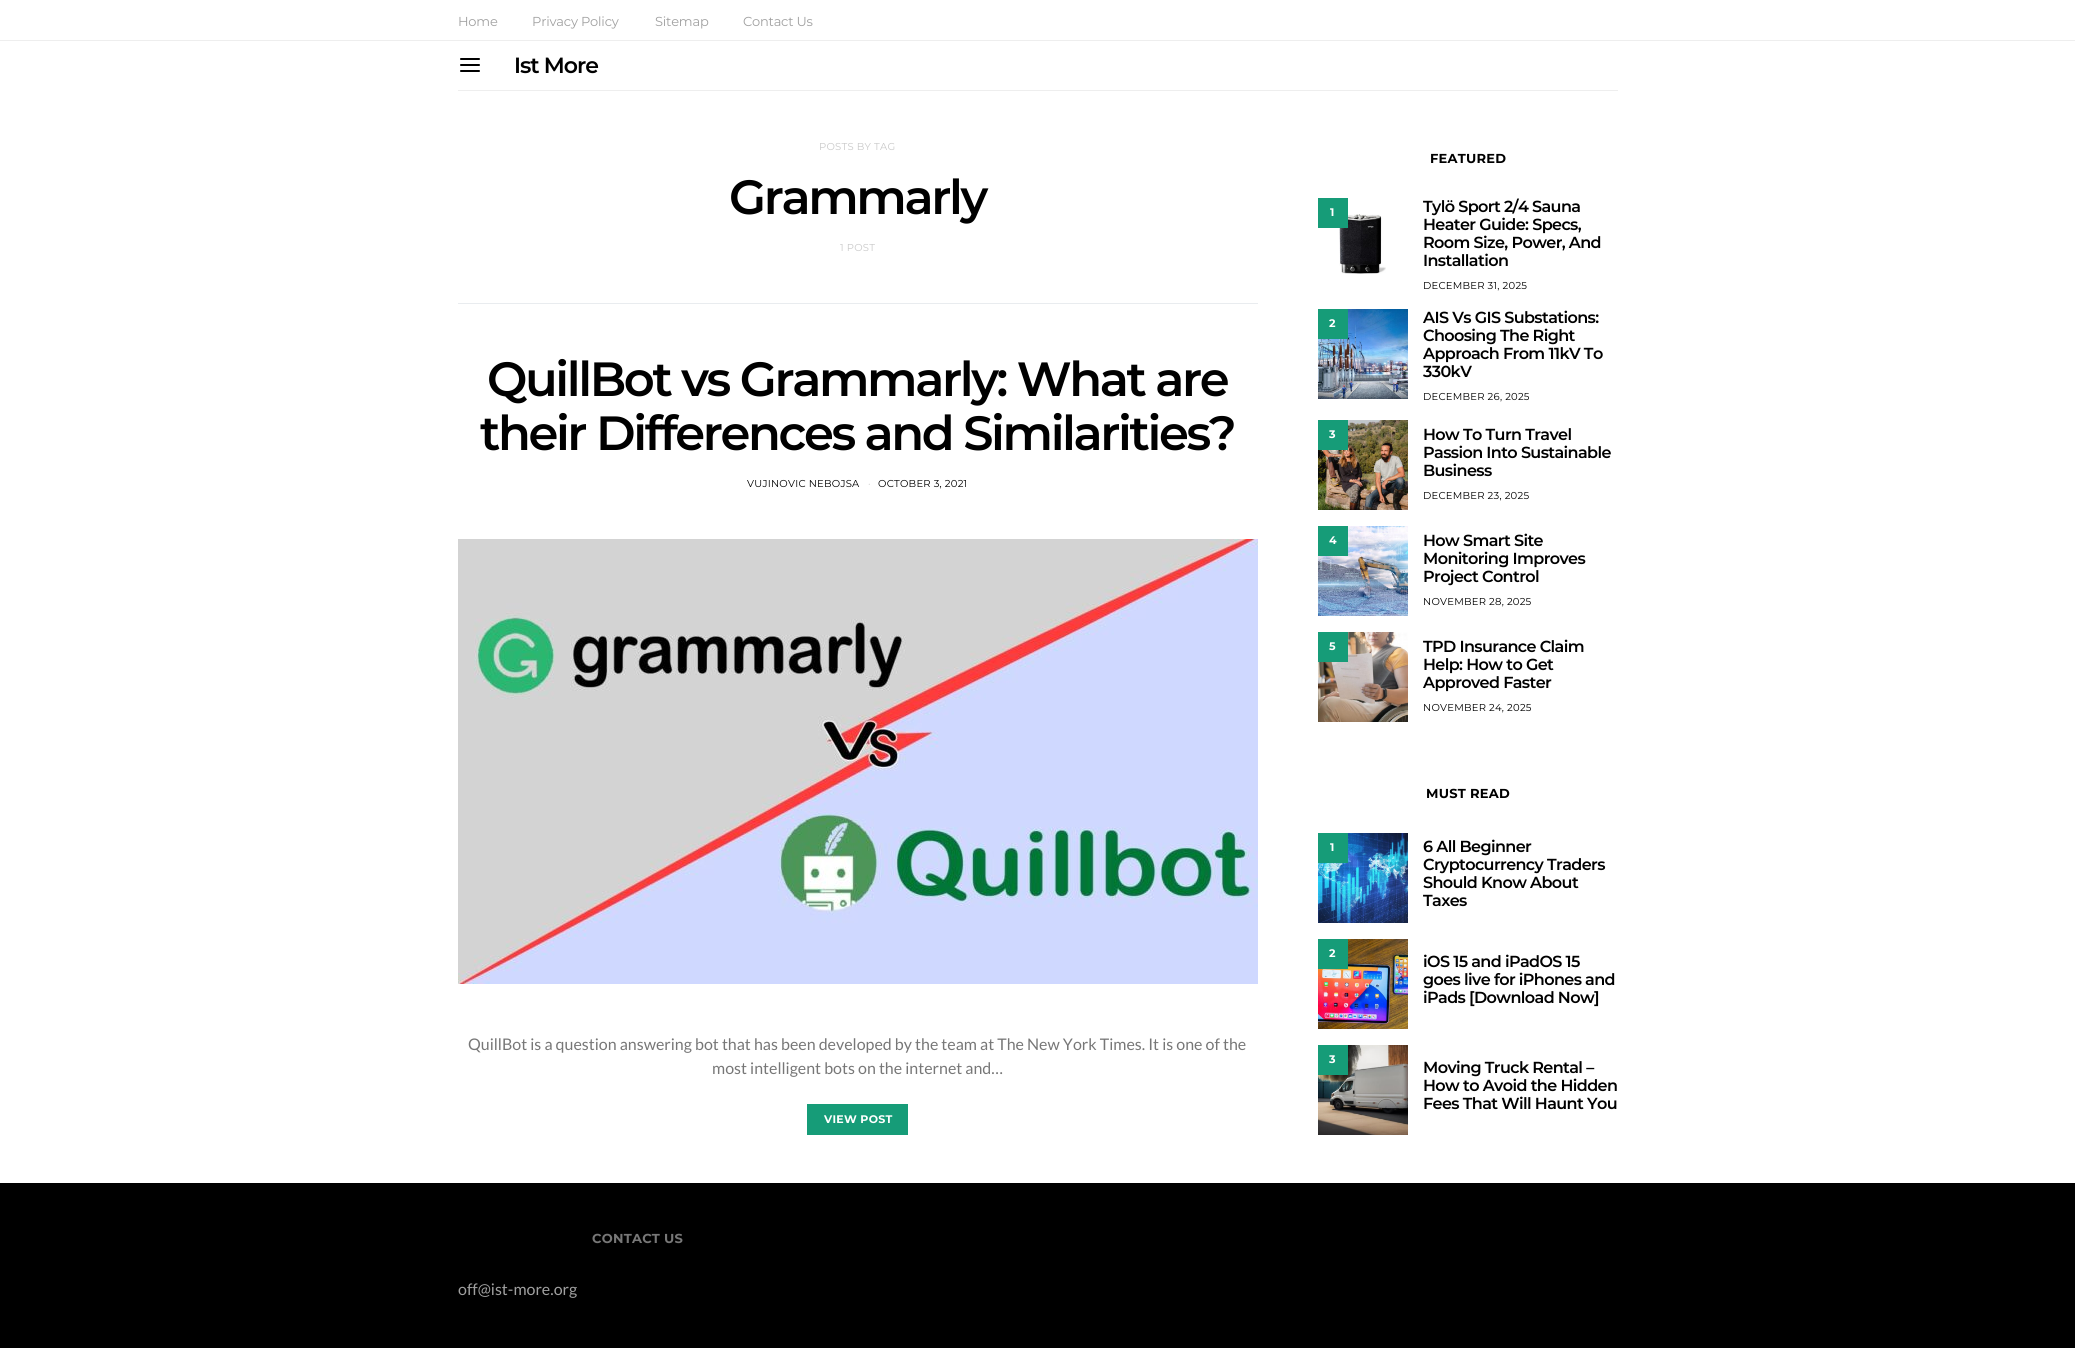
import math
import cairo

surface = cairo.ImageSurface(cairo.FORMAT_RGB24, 2075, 1348)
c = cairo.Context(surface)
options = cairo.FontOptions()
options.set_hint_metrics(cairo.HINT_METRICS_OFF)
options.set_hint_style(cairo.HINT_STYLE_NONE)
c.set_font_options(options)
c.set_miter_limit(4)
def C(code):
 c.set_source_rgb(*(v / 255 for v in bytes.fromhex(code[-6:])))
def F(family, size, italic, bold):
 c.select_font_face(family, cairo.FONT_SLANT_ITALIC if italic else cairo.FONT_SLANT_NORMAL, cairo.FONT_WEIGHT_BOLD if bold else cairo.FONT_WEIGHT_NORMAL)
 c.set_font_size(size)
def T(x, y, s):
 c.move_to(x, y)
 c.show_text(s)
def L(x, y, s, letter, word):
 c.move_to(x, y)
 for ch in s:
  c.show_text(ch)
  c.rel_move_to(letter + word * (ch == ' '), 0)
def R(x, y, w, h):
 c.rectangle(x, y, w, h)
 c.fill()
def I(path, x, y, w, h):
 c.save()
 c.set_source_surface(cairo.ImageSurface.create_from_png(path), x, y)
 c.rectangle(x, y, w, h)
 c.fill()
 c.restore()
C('ffffff')
c.paint()
C('eeeeee')
R(0,40,2075,1)
F('Montserrat',13,0,0)
C('a0a0a0')
L(458,26,'Home',-.2,0)
L(532,26,'Privacy Policy',-.2,0)
L(655,26,'Sitemap',-.2,0)
L(743,26,'Contact Us',-.2,0)
C('eeeeee')
R(458,90,1160,1)
I('1.png',460,58,20,14)
F('Montserrat SemiBold',22,0,0)
C('000000')
L(514,73,'Ist More',-1,0)
F('Montserrat',10,0,0)
C('c9c9c9')
L(819,150,'POSTS BY TAG',.25,0)
F('Montserrat SemiBold',48,0,0)
C('000000')
L(729,214,'Grammarly',-2.4,0)
F('Montserrat',10,0,0)
C('c9c9c9')
L(840,251,'1 POST',.25,0)
C('e9ecef')
R(458,303,800,1)
F('Montserrat SemiBold',48,0,0)
C('000000')
L(487,396,'QuillBot vs Grammarly: What are',-2.4,0)
L(480,450,'their Differences and Similarities?',-2.4,0)
F('Montserrat',10,0,0)
L(747,487,'VUJINOVIC NEBOJSA',.25,0)
C('c9c9c9')
L(868,487,'·',.25,0)
C('000000')
L(878,487,'OCTOBER 3, 2021',.25,0)
I('2.png',458,539,800,445)
F('Lato',16,0,0)
C('777777')
T(468,1050,'QuillBot is a question answering bot that has been developed by the team at The New York Times. It is one of the')
T(712,1074,'most intelligent bots on the internet and…')
C('169c78')
R(807,1104,101,31)
F('Montserrat',11,0,1)
C('ffffff')
L(824,1123,'VIEW POST',.25,0)
F('Montserrat',13,0,1)
C('000000')
L(1430,163,'FEATURED',.25,0)
I('3.png',1339,214,47,60)
C('169c78')
R(1318,198,30,30)
F('Montserrat',11,0,1)
C('ffffff')
L(1330,216,'1',.25,0)
F('Montserrat SemiBold',16,0,0)
C('000000')
L(1423,212,'Tylö Sport 2/4 Sauna',-.6,0)
L(1423,230,'Heater Guide: Specs,',-.6,0)
L(1423,248,'Room Size, Power, And',-.6,0)
L(1423,266,'Installation',-.6,0)
F('Montserrat',10,0,0)
L(1423,289,'DECEMBER 31, 2025',.25,0)
I('4.png',1318,309,90,90)
C('169c78')
R(1318,309,30,30)
F('Montserrat',11,0,1)
C('ffffff')
L(1329,327,'2',.25,0)
F('Montserrat SemiBold',16,0,0)
C('000000')
L(1423,323,'AIS Vs GIS Substations:',-.6,0)
L(1423,341,'Choosing The Right',-.6,0)
L(1423,359,'Approach From 11kV To',-.6,0)
L(1423,377,'330kV',-.6,0)
F('Montserrat',10,0,0)
L(1423,400,'DECEMBER 26, 2025',.25,0)
I('5.png',1318,420,90,90)
C('169c78')
R(1318,420,30,30)
F('Montserrat',11,0,1)
C('ffffff')
L(1329,438,'3',.25,0)
F('Montserrat SemiBold',16,0,0)
C('000000')
L(1423,440,'How To Turn Travel',-.6,0)
L(1423,458,'Passion Into Sustainable',-.6,0)
L(1423,476,'Business',-.6,0)
F('Montserrat',10,0,0)
L(1423,499,'DECEMBER 23, 2025',.25,0)
I('6.png',1318,526,90,90)
C('169c78')
R(1318,526,30,30)
F('Montserrat',11,0,1)
C('ffffff')
L(1329,544,'4',.25,0)
F('Montserrat SemiBold',16,0,0)
C('000000')
L(1423,546,'How Smart Site',-.6,0)
L(1423,564,'Monitoring Improves',-.6,0)
L(1423,582,'Project Control',-.6,0)
F('Montserrat',10,0,0)
L(1423,605,'NOVEMBER 28, 2025',.25,0)
I('7.png',1318,632,90,90)
C('169c78')
R(1318,632,30,30)
F('Montserrat',11,0,1)
C('ffffff')
L(1329,650,'5',.25,0)
F('Montserrat SemiBold',16,0,0)
C('000000')
L(1423,652,'TPD Insurance Claim',-.6,0)
L(1423,670,'Help: How to Get',-.6,0)
L(1423,688,'Approved Faster',-.6,0)
F('Montserrat',10,0,0)
L(1423,711,'NOVEMBER 24, 2025',.25,0)
F('Montserrat',13,0,1)
L(1426,798,'MUST READ',.25,0)
I('8.png',1318,833,90,90)
C('169c78')
R(1318,833,30,30)
F('Montserrat',11,0,1)
C('ffffff')
L(1330,851,'1',.25,0)
F('Montserrat SemiBold',16,0,0)
C('000000')
L(1423,852,'6 All Beginner',-.6,0)
L(1423,870,'Cryptocurrency Traders',-.6,0)
L(1423,888,'Should Know About',-.6,0)
L(1423,906,'Taxes',-.6,0)
I('9.png',1318,939,90,90)
C('169c78')
R(1318,939,30,30)
F('Montserrat',11,0,1)
C('ffffff')
L(1329,957,'2',.25,0)
F('Montserrat SemiBold',16,0,0)
C('000000')
L(1423,967,'iOS 15 and iPadOS 15',-.6,0)
L(1423,985,'goes live for iPhones and',-.6,0)
L(1423,1003,'iPads [Download Now]',-.6,0)
I('10.png',1318,1045,90,90)
C('169c78')
R(1318,1045,30,30)
F('Montserrat',11,0,1)
C('ffffff')
L(1329,1063,'3',.25,0)
F('Montserrat SemiBold',16,0,0)
C('000000')
L(1423,1073,'Moving Truck Rental –',-.6,0)
L(1423,1091,'How to Avoid the Hidden',-.6,0)
L(1423,1109,'Fees That Will Haunt You',-.6,0)
R(0,1183,2075,165)
F('Montserrat',13,0,1)
C('777777')
L(592,1243,'CONTACT US',.25,0)
F('Lato',16,0,0)
C('a0a0a0')
T(458,1295,'off@ist-more.org')
surface.write_to_png('o.png')
